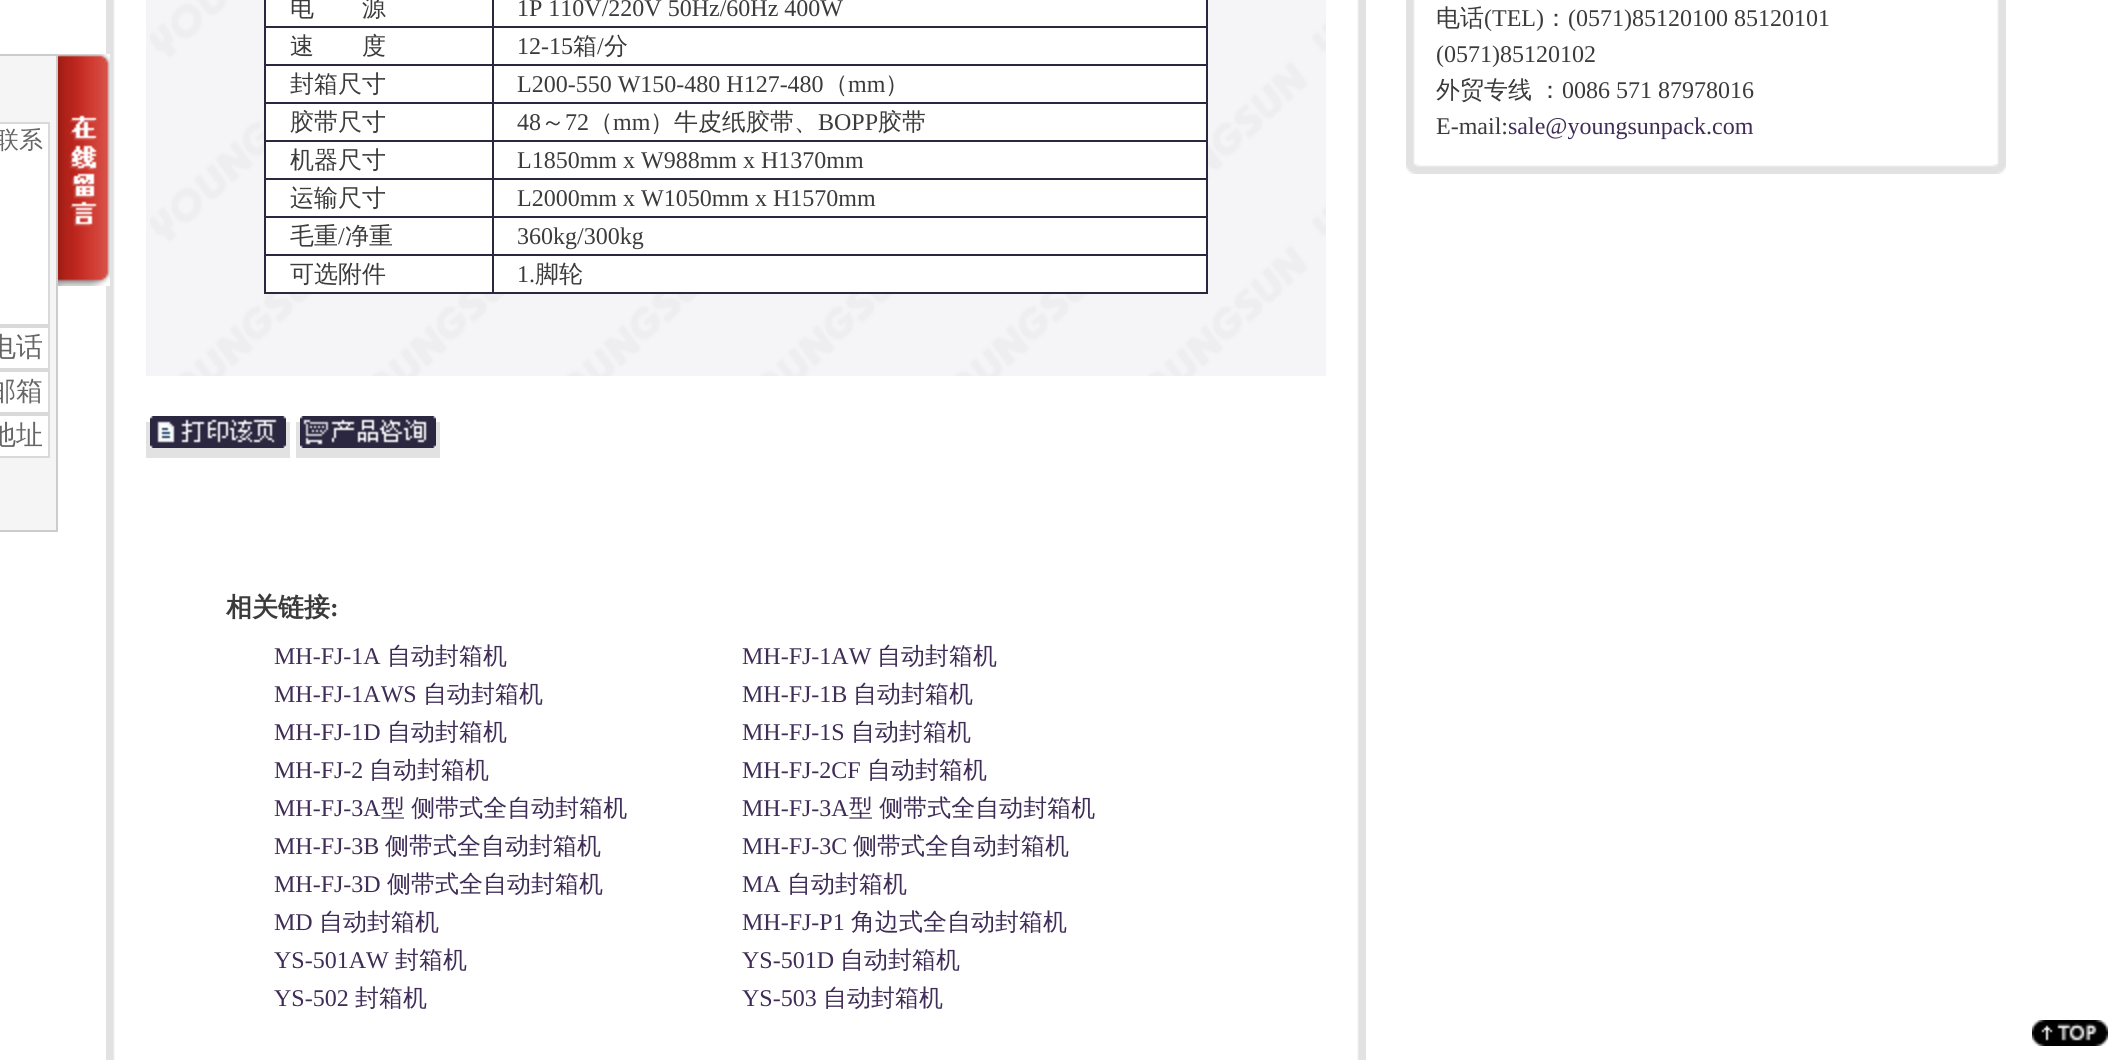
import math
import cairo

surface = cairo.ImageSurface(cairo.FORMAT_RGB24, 2112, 1060)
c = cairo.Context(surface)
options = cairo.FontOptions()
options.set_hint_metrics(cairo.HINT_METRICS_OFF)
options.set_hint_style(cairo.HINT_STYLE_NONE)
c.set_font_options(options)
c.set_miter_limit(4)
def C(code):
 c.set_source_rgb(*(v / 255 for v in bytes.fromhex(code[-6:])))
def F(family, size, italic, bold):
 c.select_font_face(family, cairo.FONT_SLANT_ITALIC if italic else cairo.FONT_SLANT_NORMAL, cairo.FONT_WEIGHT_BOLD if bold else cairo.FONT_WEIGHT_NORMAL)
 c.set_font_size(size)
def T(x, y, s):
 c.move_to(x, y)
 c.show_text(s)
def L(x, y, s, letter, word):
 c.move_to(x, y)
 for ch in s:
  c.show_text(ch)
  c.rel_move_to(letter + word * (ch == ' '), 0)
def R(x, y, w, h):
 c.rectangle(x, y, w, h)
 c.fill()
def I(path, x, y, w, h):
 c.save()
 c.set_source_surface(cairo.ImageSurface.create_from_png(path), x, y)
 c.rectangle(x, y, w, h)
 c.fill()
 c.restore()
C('ffffff')
c.paint()
C('f5f5f5')
c.rectangle(-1,55,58,476)
c.fill_preserve()
C('cccccc')
c.stroke()
C('ffffff')
c.rectangle(-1,123,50,202)
c.fill_preserve()
C('d9d9d9')
c.stroke()
F('WenQuanYi Zen Hei Medium',24,0,0)
C('666666')
T(-5,148,'联系')
c.rectangle(-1,327,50,42)
C('d9d9d9')
c.stroke()
C('ffffff')
R(0,328,48,40)
F('WenQuanYi Zen Hei Medium',27,0,0)
C('666666')
T(-11,356,'电话')
c.rectangle(-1,371,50,42)
C('d9d9d9')
c.stroke()
C('ffffff')
R(0,372,48,40)
C('666666')
T(-11,400,'邮箱')
c.rectangle(-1,415,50,42)
C('d9d9d9')
c.stroke()
C('ffffff')
R(0,416,48,40)
C('666666')
T(-11,444,'地址')
I('2.png',106,0,1260,1060)
I('1.png',58,54,52,232)
C('f4f3f6')
R(146,0,4,376)
I('3.png',150,0,1176,376)
C('2b2740')
R(264,0,944,294)
C('ffffff')
R(266,0,226,26)
F('WenQuanYi Zen Hei Medium',24,0,0)
C('3b3b3b')
T(290,16,'电　　源')
C('ffffff')
R(494,0,712,26)
F('Liberation Serif',24,0,0)
C('3b3b3b')
T(517,16,'1P 110V/220V 50Hz/60Hz 400W')
C('ffffff')
R(266,28,226,36)
F('WenQuanYi Zen Hei Medium',24,0,0)
C('3b3b3b')
T(290,54,'速　　度')
C('ffffff')
R(494,28,712,36)
F('Liberation Serif',24,0,0)
C('3b3b3b')
T(517,54,'12-15')
F('WenQuanYi Zen Hei Medium',24,0,0)
T(573,54,'箱')
F('Liberation Serif',24,0,0)
T(597,54,'/')
F('WenQuanYi Zen Hei Medium',24,0,0)
T(604,54,'分')
C('ffffff')
R(266,66,226,36)
C('3b3b3b')
T(290,92,'封箱尺寸')
C('ffffff')
R(494,66,712,36)
F('Liberation Serif',24,0,0)
C('3b3b3b')
T(517,92,'L200-550 W150-480 H127-480')
F('WenQuanYi Zen Hei Medium',24,0,0)
T(824,92,'（')
F('Liberation Serif',24,0,0)
T(848,92,'mm')
F('WenQuanYi Zen Hei Medium',24,0,0)
T(885,92,'）')
C('ffffff')
R(266,104,226,36)
C('3b3b3b')
T(290,130,'胶带尺寸')
C('ffffff')
R(494,104,712,36)
F('Liberation Serif',24,0,0)
C('3b3b3b')
T(517,130,'48')
F('WenQuanYi Zen Hei Medium',24,0,0)
T(541,130,'～')
F('Liberation Serif',24,0,0)
T(565,130,'72')
F('WenQuanYi Zen Hei Medium',24,0,0)
T(589,130,'（')
F('Liberation Serif',24,0,0)
T(613,130,'mm')
F('WenQuanYi Zen Hei Medium',24,0,0)
T(650,130,'）牛皮纸胶带、')
F('Liberation Serif',24,0,0)
T(818,130,'BOPP')
F('WenQuanYi Zen Hei Medium',24,0,0)
T(878,130,'胶带')
C('ffffff')
R(266,142,226,36)
C('3b3b3b')
T(290,168,'机器尺寸')
C('ffffff')
R(494,142,712,36)
F('Liberation Serif',24,0,0)
C('3b3b3b')
T(517,168,'L1850mm x W988mm x H1370mm')
C('ffffff')
R(266,180,226,36)
F('WenQuanYi Zen Hei Medium',24,0,0)
C('3b3b3b')
T(290,206,'运输尺寸')
C('ffffff')
R(494,180,712,36)
F('Liberation Serif',24,0,0)
C('3b3b3b')
T(517,206,'L2000mm x W1050mm x H1570mm')
C('ffffff')
R(266,218,226,36)
F('WenQuanYi Zen Hei Medium',24,0,0)
C('3b3b3b')
T(290,244,'毛重')
F('Liberation Serif',24,0,0)
T(338,244,'/')
F('WenQuanYi Zen Hei Medium',24,0,0)
T(345,244,'净重')
C('ffffff')
R(494,218,712,36)
F('Liberation Serif',24,0,0)
C('3b3b3b')
T(517,244,'360kg/300kg')
C('ffffff')
R(266,256,226,36)
F('WenQuanYi Zen Hei Medium',24,0,0)
C('3b3b3b')
T(290,282,'可选附件')
C('ffffff')
R(494,256,712,36)
F('Liberation Serif',24,0,0)
C('3b3b3b')
T(517,282,'1.')
F('WenQuanYi Zen Hei Medium',24,0,0)
T(535,282,'脚轮')
C('e2e2e2')
R(146,422,144,36)
I('4.png',150,416,136,32)
R(296,422,144,36)
I('5.png',300,416,136,32)
F('WenQuanYi Zen Hei',26,0,1)
C('3b3b3b')
T(226,616,'相关链接')
F('Liberation Serif',26,0,1)
T(330,616,':')
F('Liberation Serif',24,0,0)
C('3f2c57')
T(274,664,'MH-FJ-1A')
F('WenQuanYi Zen Hei Medium',24,0,0)
T(387,664,'自动封箱机')
F('Liberation Serif',24,0,0)
T(742,664,'MH-FJ-1AW')
F('WenQuanYi Zen Hei Medium',24,0,0)
T(877,664,'自动封箱机')
F('Liberation Serif',24,0,0)
T(274,702,'MH-FJ-1AWS')
F('WenQuanYi Zen Hei Medium',24,0,0)
T(423,702,'自动封箱机')
F('Liberation Serif',24,0,0)
T(742,702,'MH-FJ-1B')
F('WenQuanYi Zen Hei Medium',24,0,0)
T(853,702,'自动封箱机')
F('Liberation Serif',24,0,0)
T(274,740,'MH-FJ-1D')
F('WenQuanYi Zen Hei Medium',24,0,0)
T(387,740,'自动封箱机')
F('Liberation Serif',24,0,0)
T(742,740,'MH-FJ-1S')
F('WenQuanYi Zen Hei Medium',24,0,0)
T(851,740,'自动封箱机')
F('Liberation Serif',24,0,0)
T(274,778,'MH-FJ-2')
F('WenQuanYi Zen Hei Medium',24,0,0)
T(369,778,'自动封箱机')
F('Liberation Serif',24,0,0)
T(742,778,'MH-FJ-2CF')
F('WenQuanYi Zen Hei Medium',24,0,0)
T(867,778,'自动封箱机')
F('Liberation Serif',24,0,0)
T(274,816,'MH-FJ-3A')
F('WenQuanYi Zen Hei Medium',24,0,0)
L(381,816,'型 侧带式全自动封箱机',0,-1)
F('Liberation Serif',24,0,0)
T(742,816,'MH-FJ-3A')
F('WenQuanYi Zen Hei Medium',24,0,0)
L(849,816,'型 侧带式全自动封箱机',0,-1)
F('Liberation Serif',24,0,0)
T(274,854,'MH-FJ-3B')
F('WenQuanYi Zen Hei Medium',24,0,0)
T(385,854,'侧带式全自动封箱机')
F('Liberation Serif',24,0,0)
T(742,854,'MH-FJ-3C')
F('WenQuanYi Zen Hei Medium',24,0,0)
T(853,854,'侧带式全自动封箱机')
F('Liberation Serif',24,0,0)
T(274,892,'MH-FJ-3D')
F('WenQuanYi Zen Hei Medium',24,0,0)
T(387,892,'侧带式全自动封箱机')
F('Liberation Serif',24,0,0)
T(742,892,'MA')
F('WenQuanYi Zen Hei Medium',24,0,0)
T(787,892,'自动封箱机')
F('Liberation Serif',24,0,0)
T(274,930,'MD')
F('WenQuanYi Zen Hei Medium',24,0,0)
T(319,930,'自动封箱机')
F('Liberation Serif',24,0,0)
T(742,930,'MH-FJ-P1')
F('WenQuanYi Zen Hei Medium',24,0,0)
T(851,930,'角边式全自动封箱机')
F('Liberation Serif',24,0,0)
T(274,968,'YS-501AW')
F('WenQuanYi Zen Hei Medium',24,0,0)
T(395,968,'封箱机')
F('Liberation Serif',24,0,0)
T(742,968,'YS-501D')
F('WenQuanYi Zen Hei Medium',24,0,0)
T(840,968,'自动封箱机')
F('Liberation Serif',24,0,0)
T(274,1006,'YS-502')
F('WenQuanYi Zen Hei Medium',24,0,0)
T(355,1006,'封箱机')
F('Liberation Serif',24,0,0)
T(742,1006,'YS-503')
F('WenQuanYi Zen Hei Medium',24,0,0)
T(823,1006,'自动封箱机')
I('6.png',1406,0,600,164)
C('3b3b3b')
T(1436,26,'电话')
F('Liberation Serif',24,0,0)
T(1484,26,'(TEL)')
F('WenQuanYi Zen Hei Medium',24,0,0)
T(1544,26,'：')
F('Liberation Serif',24,0,0)
T(1568,26,'(0571)85120100 85120101')
T(1436,62,'(0571)85120102')
F('WenQuanYi Zen Hei Medium',24,0,0)
T(1436,98,'外贸专线')
T(1538,98,'：')
F('Liberation Serif',24,0,0)
T(1562,98,'0086 571 87978016')
T(1436,134,'E-mail:')
C('3f2c57')
T(1508,134,'sale@youngsunpack.com')
I('7.png',1406,164,600,10)
I('8.png',2032,1020,76,26)
surface.write_to_png('o.png')
